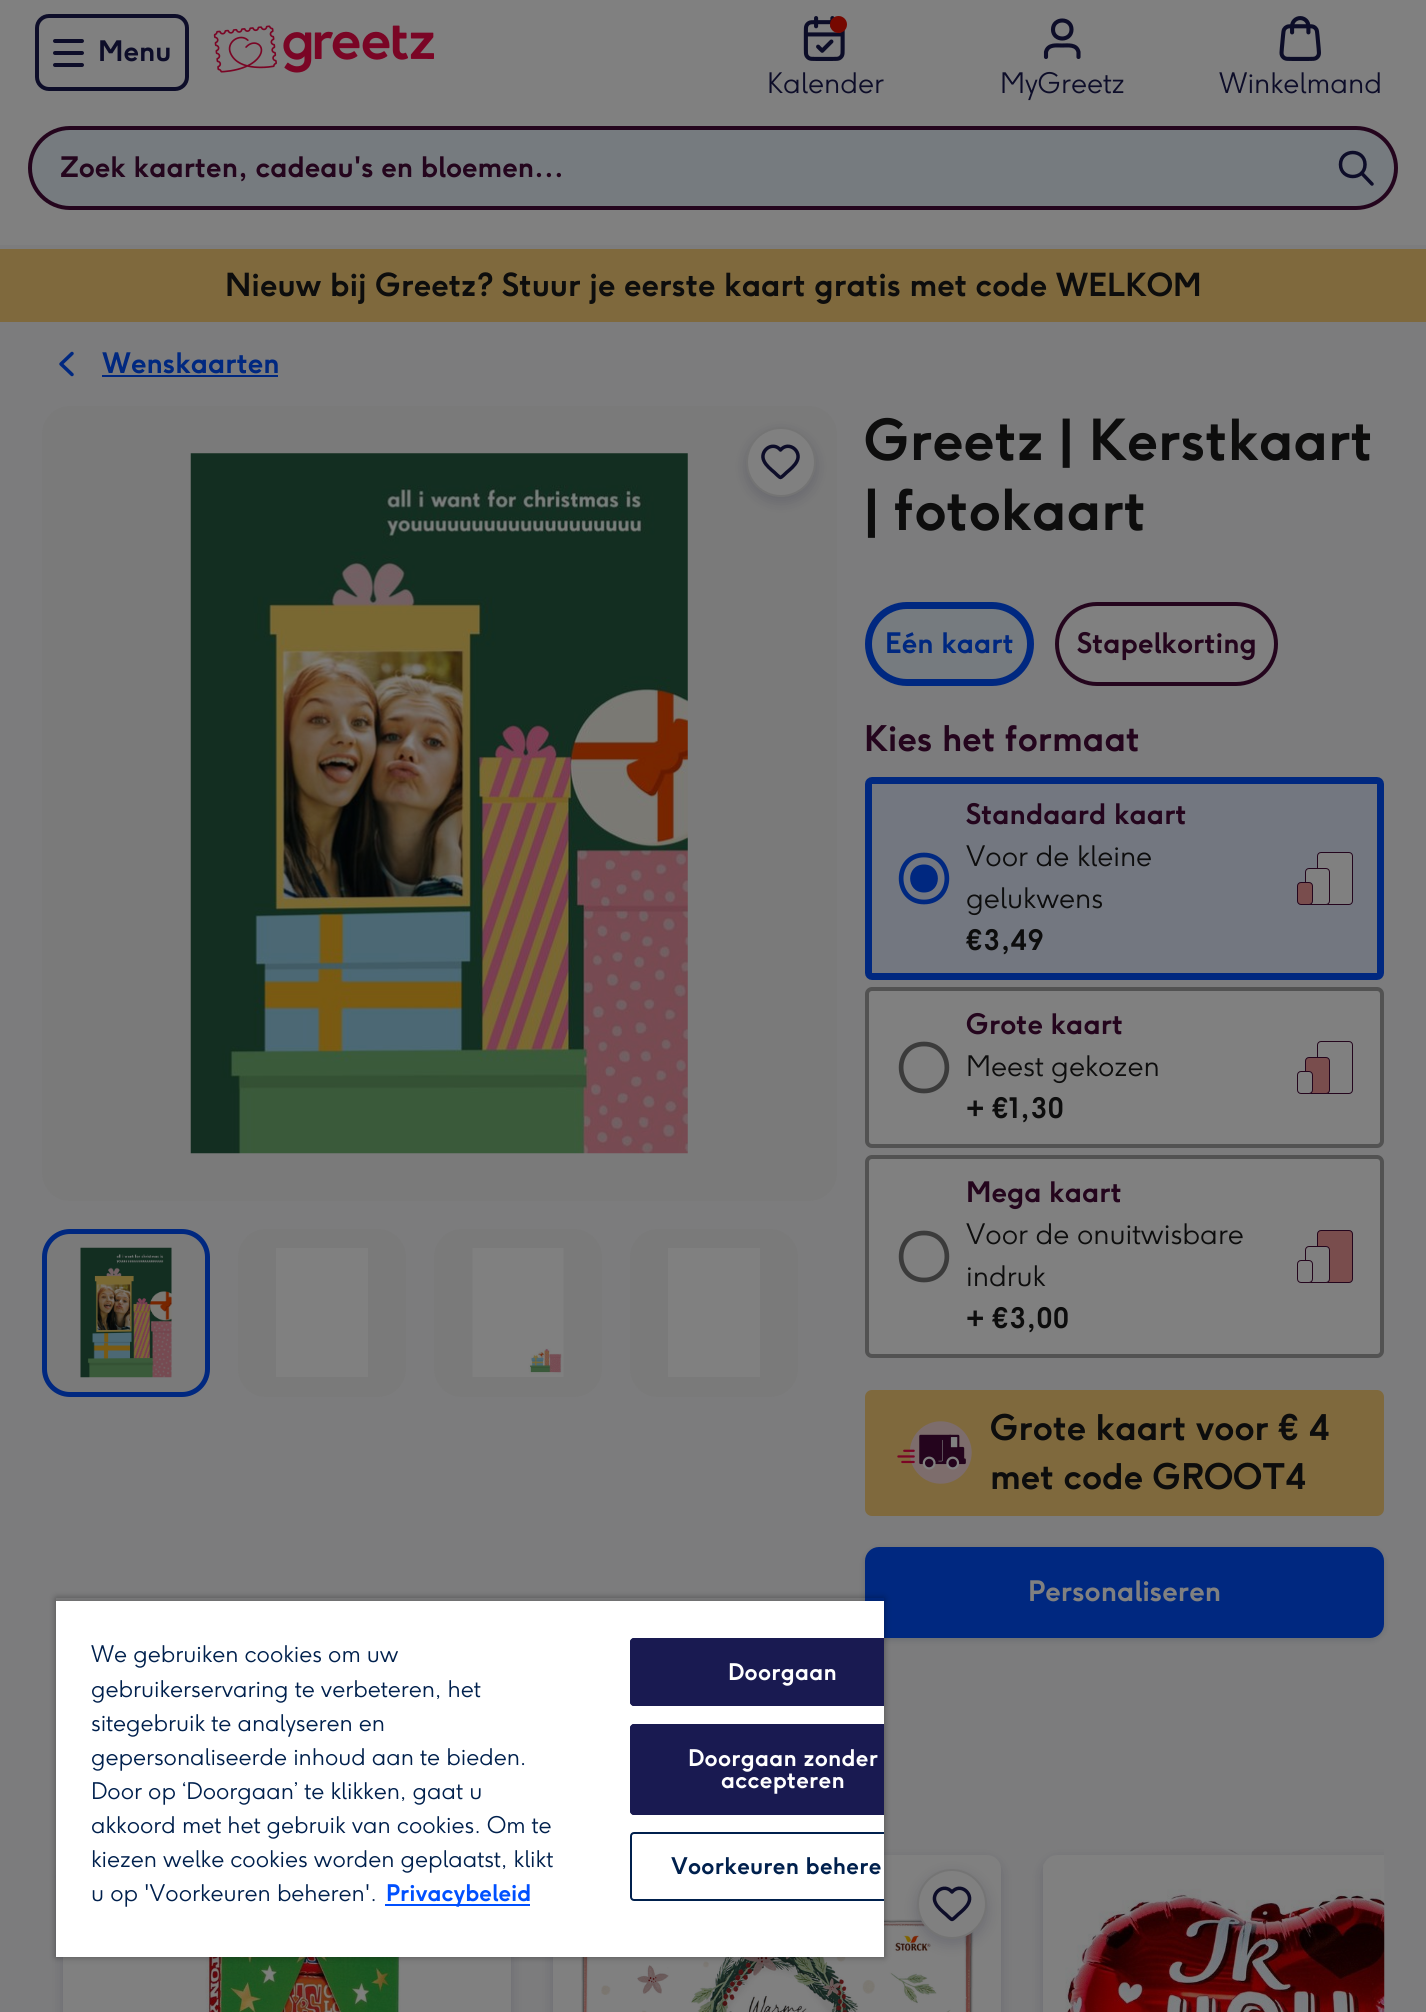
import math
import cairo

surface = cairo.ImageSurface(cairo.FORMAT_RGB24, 1426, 2012)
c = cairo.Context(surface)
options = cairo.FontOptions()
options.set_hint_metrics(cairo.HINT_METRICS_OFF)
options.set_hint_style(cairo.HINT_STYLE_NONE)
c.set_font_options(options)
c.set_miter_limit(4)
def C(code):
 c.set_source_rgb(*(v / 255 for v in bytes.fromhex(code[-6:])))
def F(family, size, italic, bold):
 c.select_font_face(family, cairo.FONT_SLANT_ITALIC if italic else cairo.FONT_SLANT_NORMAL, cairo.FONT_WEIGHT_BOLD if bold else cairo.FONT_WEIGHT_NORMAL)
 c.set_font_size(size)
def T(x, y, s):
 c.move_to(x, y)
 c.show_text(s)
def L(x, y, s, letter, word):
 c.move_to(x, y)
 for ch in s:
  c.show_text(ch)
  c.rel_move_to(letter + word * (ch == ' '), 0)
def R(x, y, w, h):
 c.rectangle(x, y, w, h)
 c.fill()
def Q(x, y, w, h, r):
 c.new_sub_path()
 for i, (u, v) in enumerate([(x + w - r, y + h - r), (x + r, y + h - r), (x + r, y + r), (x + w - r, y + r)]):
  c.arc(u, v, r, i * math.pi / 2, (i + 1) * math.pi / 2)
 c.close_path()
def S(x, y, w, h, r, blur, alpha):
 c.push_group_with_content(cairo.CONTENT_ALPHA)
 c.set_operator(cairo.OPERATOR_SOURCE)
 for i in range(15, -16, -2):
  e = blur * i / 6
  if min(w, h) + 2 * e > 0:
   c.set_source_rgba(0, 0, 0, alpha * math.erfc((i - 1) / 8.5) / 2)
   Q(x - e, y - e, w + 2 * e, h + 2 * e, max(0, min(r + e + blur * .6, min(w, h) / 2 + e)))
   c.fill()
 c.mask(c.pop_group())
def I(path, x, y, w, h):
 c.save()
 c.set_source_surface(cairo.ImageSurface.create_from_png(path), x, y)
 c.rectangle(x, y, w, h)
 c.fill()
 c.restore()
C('7c7c7d')
c.paint()
C('808080')
R(0,0,1426,245)
Q(37,16,150,73,12)
C('0d0d29')
c.set_line_width(4)
c.stroke()
Q(53,39,31,4,2)
c.fill()
Q(53,51,31,4,2)
c.fill()
Q(53,63,31,4,2)
c.fill()
F('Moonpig',28,0,1)
T(98,61,'Menu')
I('1.png',213,25,221,48)
I('2.png',803,16,42,45)
C('760800')
c.arc(838.5,24.5,8.5,0,2 * math.pi)
c.fill()
F('Moonpig Light',28,0,0)
C('0d0d29')
T(767,93,'Kalender')
c.new_path()
c.move_to(1078.5,57)
c.line_to(1078.5,52)
c.curve_to(1076.5,44,1068,45.5,1062,45.5)
c.curve_to(1056.5,45.5,1048,44,1046,52)
c.line_to(1046,57)
c.move_to(1071.5,29.5)
c.curve_to(1071.5,41.5,1053,41.5,1053,29.5)
c.curve_to(1053,17.5,1071.5,17.5,1071.5,29.5)
c.set_line_width(4.1)
c.set_line_cap(cairo.LINE_CAP_ROUND)
c.set_line_join(cairo.LINE_JOIN_ROUND)
c.stroke()
T(1000,93,'MyGreetz')
I('3.png',1279,16,42,45)
T(1219,93,'Winkelmand')
C('767b7f')
Q(30,128,1366,80,40)
c.fill_preserve()
C('24051d')
c.set_line_width(4)
c.set_line_cap(cairo.LINE_CAP_BUTT)
c.set_line_join(cairo.LINE_JOIN_MITER)
c.stroke()
F('Moonpig',28,0,1)
T(60,177,'Zoek kaarten, cadeau\'s en bloemen…')
c.new_path()
c.move_to(1372,184)
c.line_to(1361.5,173)
c.move_to(1365,164.5)
c.curve_to(1365,180.5,1340.5,180.5,1340.5,164.5)
c.curve_to(1340.5,148.5,1365,148.5,1365,164.5)
C('0d0d29')
c.set_line_width(3.5)
c.set_line_cap(cairo.LINE_CAP_ROUND)
c.set_line_join(cairo.LINE_JOIN_ROUND)
c.stroke()
C('7f693d')
R(0,249,1426,73)
F('Moonpig',31.5,0,1)
C('0d0d0d')
T(225,296,'Nieuw bij Greetz? Stuur je eerste kaart gratis met code WELKOM')
c.new_path()
c.move_to(72,374.5)
c.line_to(61,364)
c.line_to(72,353.5)
C('002880')
c.stroke()
F('Moonpig',28,0,1)
T(102,373,'Wenskaarten')
R(102,375,176,2)
C('7a7a7a')
Q(42,406,795,795,28)
c.fill()
I('4.png',190,453,498,701)
C('000227')
S(746,432,70,70,35,7,.15)
C('808080')
c.arc(781,462,34,0,2 * math.pi)
c.fill_preserve()
C('747474')
c.set_line_width(2)
c.set_line_cap(cairo.LINE_CAP_BUTT)
c.set_line_join(cairo.LINE_JOIN_MITER)
c.stroke()
c.new_path()
c.move_to(780.5,450)
c.curve_to(772.5,440.5,759,451,764,461)
c.curve_to(766,465.5,771,469.5,774.5,472.5)
c.curve_to(775,473,779.5,477.5,780.5,477.5)
c.curve_to(781.5,477.5,786,473,786.5,472.5)
c.curve_to(790,469.5,795,465.5,797,461)
c.curve_to(802,451,788.5,440.5,780.5,450)
C('0d0d29')
c.set_line_width(3.5)
c.set_line_cap(cairo.LINE_CAP_ROUND)
c.set_line_join(cairo.LINE_JOIN_ROUND)
c.stroke()
C('7a7a7a')
Q(44.5,1231.5,163,163,25.5)
c.fill_preserve()
C('002880')
c.set_line_width(5)
c.set_line_cap(cairo.LINE_CAP_BUTT)
c.set_line_join(cairo.LINE_JOIN_MITER)
c.stroke()
I('5.png',80,1247,92,131)
C('7a7a7a')
Q(238,1229,168,168,28)
c.fill()
C('808080')
R(276,1248,92,129)
C('7a7a7a')
Q(434,1229,168,168,28)
c.fill()
I('6.png',472,1248,92,129)
Q(630,1229,168,168,28)
c.fill()
C('808080')
R(668,1248,92,129)
F('Moonpig',56,0,1)
C('0d0d0d')
T(864,460,'Greetz | Kerstkaart')
T(864,530,'| fotokaart')
C('767b7f')
Q(868.5,605.5,162,77,38.5)
c.fill_preserve()
C('002880')
c.set_line_width(7)
c.stroke()
F('Moonpig',28,0,1)
T(885,653,'Eén kaart')
C('808080')
Q(1057,604,219,80,40)
c.fill_preserve()
C('24051d')
c.set_line_width(4)
c.stroke()
T(1077,653,'Stapelkorting')
F('Moonpig',35,0,1)
T(864,751,'Kies het formaat')
C('737780')
Q(868.5,780.5,512,196,3.5)
c.fill_preserve()
C('002880')
c.set_line_width(7)
c.stroke()
c.new_path()
c.move_to(924,902)
c.curve_to(954.5,902,954.5,855,924,855)
c.curve_to(893.5,855,893.5,902,924,902)
c.set_line_width(4.7)
c.set_line_cap(cairo.LINE_CAP_ROUND)
c.set_line_join(cairo.LINE_JOIN_ROUND)
c.stroke()
c.new_path()
c.move_to(924,892.5)
c.curve_to(942.5,892.5,942.5,864.5,924,864.5)
c.curve_to(905.5,864.5,905.5,892.5,924,892.5)
c.fill()
F('Moonpig',28,0,1)
C('24051d')
T(966,824,'Standaard kaart')
F('Moonpig Light',28,0,0)
C('0d0d0d')
T(966,866,'Voor de kleine')
T(966,908,'gelukwens')
F('Moonpig',28,0,1)
T(966,950,'€3,49')
C('808080')
Q(1317.5,852.5,35,52,3.5)
c.fill_preserve()
C('24051d')
c.set_line_width(1)
c.set_line_cap(cairo.LINE_CAP_BUTT)
c.set_line_join(cairo.LINE_JOIN_MITER)
c.stroke()
C('808080')
Q(1305.5,868.5,24,36,3.5)
c.fill_preserve()
C('24051d')
c.stroke()
C('794d4d')
Q(1297.5,882.5,15,22,3.5)
c.fill_preserve()
C('24051d')
c.stroke()
C('808080')
Q(867,989,515,157,5)
c.fill_preserve()
C('525252')
c.set_line_width(4)
c.stroke()
c.new_path()
c.move_to(924,1091)
c.curve_to(954.5,1091,954.5,1044,924,1044)
c.curve_to(893.5,1044,893.5,1091,924,1091)
C('3b3b3b')
c.set_line_width(4.7)
c.set_line_cap(cairo.LINE_CAP_ROUND)
c.set_line_join(cairo.LINE_JOIN_ROUND)
c.stroke()
C('24051d')
T(966,1034,'Grote kaart')
F('Moonpig Light',28,0,0)
C('0d0d0d')
T(966,1076,'Meest gekozen')
F('Moonpig',28,0,1)
T(966,1118,'+ €1,30')
Q(1317.5,1041.5,35,52,3.5)
C('24051d')
c.set_line_width(1)
c.set_line_cap(cairo.LINE_CAP_BUTT)
c.set_line_join(cairo.LINE_JOIN_MITER)
c.stroke()
C('794d4d')
Q(1305.5,1057.5,24,36,3.5)
c.fill_preserve()
C('24051d')
c.stroke()
C('808080')
Q(1297.5,1071.5,15,22,3.5)
c.fill_preserve()
C('24051d')
c.stroke()
C('808080')
Q(867,1157,515,199,5)
c.fill_preserve()
C('525252')
c.set_line_width(4)
c.stroke()
c.new_path()
c.move_to(924,1280)
c.curve_to(954.5,1280,954.5,1233,924,1233)
c.curve_to(893.5,1233,893.5,1280,924,1280)
C('3b3b3b')
c.set_line_width(4.7)
c.set_line_cap(cairo.LINE_CAP_ROUND)
c.set_line_join(cairo.LINE_JOIN_ROUND)
c.stroke()
C('24051d')
T(966,1202,'Mega kaart')
F('Moonpig Light',28,0,0)
C('0d0d0d')
T(966,1244,'Voor de onuitwisbare')
T(966,1286,'indruk')
F('Moonpig',28,0,1)
T(966,1328,'+ €3,00')
C('794d4d')
Q(1317.5,1230.5,35,52,3.5)
c.fill_preserve()
C('24051d')
c.set_line_width(1)
c.set_line_cap(cairo.LINE_CAP_BUTT)
c.set_line_join(cairo.LINE_JOIN_MITER)
c.stroke()
C('808080')
Q(1305.5,1246.5,24,36,3.5)
c.fill_preserve()
C('24051d')
c.stroke()
C('808080')
Q(1297.5,1260.5,15,22,3.5)
c.fill_preserve()
C('24051d')
c.stroke()
C('7f693d')
Q(865,1390,519,126,7)
c.fill()
I('7.png',897,1421,75,63)
F('Moonpig',35,0,1)
C('0d0d0d')
T(990,1440,'Grote kaart voor € 4')
T(990,1489,'met code GROOT4')
C('001027')
S(865,1549,519,91,14,3.5,.15)
C('002880')
Q(867,1549,515,87,12)
c.fill_preserve()
c.set_line_width(4)
c.stroke()
F('Moonpig',28,0,1)
C('808080')
T(1028,1601,'Personaliseren')
C('000227')
S(63,1860,448,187,14,7,.15)
C('808080')
R(401,1957,110,55)
I('8.png',63,1957,338,55)
C('000227')
S(553,1860,448,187,14,7,.15)
C('808080')
Q(553,1855,448,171,14)
c.fill()
I('9.png',581,1919,393,93)
C('000227')
S(917,1874,70,70,35,7,.15)
C('808080')
c.arc(952,1904,34,0,2 * math.pi)
c.fill_preserve()
C('747474')
c.set_line_width(2)
c.stroke()
c.new_path()
c.move_to(952,1892)
c.curve_to(944,1882.5,930.5,1893,935.5,1903)
c.curve_to(937.5,1907.5,942.5,1911.5,946,1914.5)
c.curve_to(946.5,1915,951,1919.5,952,1919.5)
c.curve_to(953,1919.5,957.5,1915,958,1914.5)
c.curve_to(961.5,1911.5,966.5,1907.5,968.5,1903)
c.curve_to(973.5,1893,960,1882.5,952,1892)
C('0d0d29')
c.set_line_width(3.5)
c.set_line_cap(cairo.LINE_CAP_ROUND)
c.set_line_join(cairo.LINE_JOIN_ROUND)
c.stroke()
c.save()
c.rectangle(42,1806,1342,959)
c.clip()
C('000227')
S(1043,1860,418,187,14,7,.15)
c.restore()
C('808080')
c.new_path()
c.move_to(1057,1855)
c.line_to(1384,1855)
c.line_to(1384,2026)
c.line_to(1057,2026)
c.curve_to(1049.5,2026,1043,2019.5,1043,2012)
c.line_to(1043,1869)
c.curve_to(1043,1861.5,1049.5,1855,1057,1855)
c.close_path()
c.fill()
I('10.png',1043,1864,342,148)
c.save()
c.set_fill_rule(cairo.FILL_RULE_EVEN_ODD)
c.new_path()
c.move_to(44,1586)
c.line_to(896,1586)
c.line_to(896,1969)
c.line_to(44,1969)
c.close_path()
c.move_to(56,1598)
c.line_to(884,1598)
c.line_to(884,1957)
c.line_to(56,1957)
c.close_path()
c.clip()
C('000000')
S(56,1598,828,359,0,3.5,.35)
c.restore()
c.save()
c.rectangle(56,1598,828,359)
c.clip()
C('000000')
S(56,1601,828,356,0,3.5,.2)
c.restore()
C('ffffff')
R(56,1601,828,356)
F('Moonpig Light',22.75,0,0)
C('00204d')
T(91,1662,'We gebruiken cookies om uw')
T(91,1697,'gebruikerservaring te verbeteren, het')
T(91,1731,'sitegebruik te analyseren en')
T(91,1765,'gepersonaliseerde inhoud aan te bieden.')
T(91,1799,'Door op ‘Doorgaan’ te klikken, gaat u')
T(91,1833,'akkoord met het gebruik van cookies. Om te')
T(91,1867,'kiezen welke cookies worden geplaatst, klikt')
T(91,1901,'u op \'Voorkeuren beheren\'.')
C('0050ff')
R(385,1904,145,2)
F('Moonpig',22.75,0,1)
T(386,1901,'Privacybeleid')
C('191a51')
c.new_path()
c.move_to(634,1638)
c.line_to(884,1638)
c.line_to(884,1706)
c.line_to(634,1706)
c.curve_to(632,1706,630,1704,630,1702)
c.line_to(630,1642)
c.curve_to(630,1640,632,1638,634,1638)
c.close_path()
c.fill()
c.save()
c.rectangle(56,1598,828,359)
c.clip()
Q(631,1639,304,66,3)
c.set_line_width(2)
c.set_line_cap(cairo.LINE_CAP_BUTT)
c.set_line_join(cairo.LINE_JOIN_MITER)
c.stroke()
c.restore()
C('ffffff')
L(728,1680,'Doorgaan',.25,0)
C('191a51')
c.new_path()
c.move_to(634,1724)
c.line_to(884,1724)
c.line_to(884,1815)
c.line_to(634,1815)
c.curve_to(632,1815,630,1813,630,1811)
c.line_to(630,1728)
c.curve_to(630,1726,632,1724,634,1724)
c.close_path()
c.fill()
c.save()
c.rectangle(56,1598,828,359)
c.clip()
Q(631,1725,304,89,3)
c.set_line_width(2)
c.set_line_cap(cairo.LINE_CAP_BUTT)
c.set_line_join(cairo.LINE_JOIN_MITER)
c.stroke()
c.restore()
C('ffffff')
L(688,1766,'Doorgaan zonder',.25,0)
L(721,1788,'accepteren',.25,0)
c.save()
c.rectangle(56,1598,828,359)
c.clip()
Q(631,1833,304,67,3)
C('00204d')
c.set_line_width(2)
c.set_line_cap(cairo.LINE_CAP_BUTT)
c.set_line_join(cairo.LINE_JOIN_MITER)
c.stroke()
c.restore()
C('00204d')
L(671,1874,'Voorkeuren behere',.25,0)
surface.write_to_png('o.png')
